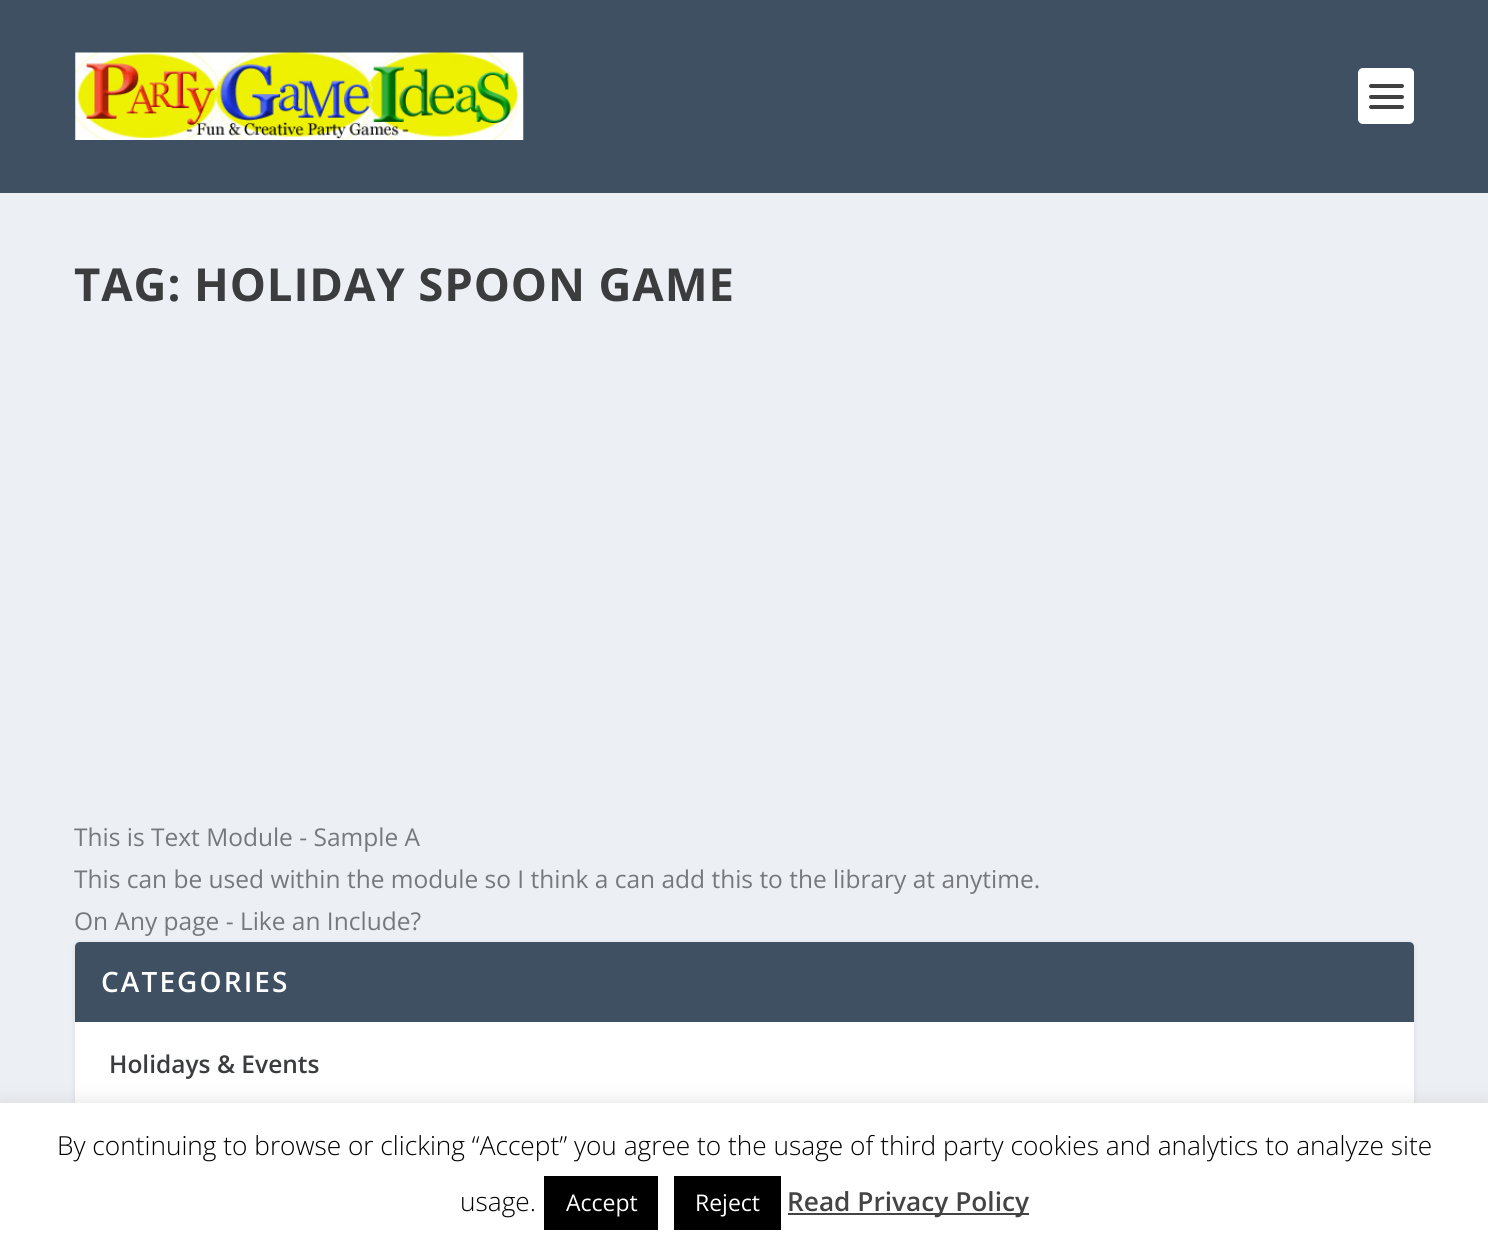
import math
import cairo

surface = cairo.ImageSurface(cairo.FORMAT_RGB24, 1488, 1251)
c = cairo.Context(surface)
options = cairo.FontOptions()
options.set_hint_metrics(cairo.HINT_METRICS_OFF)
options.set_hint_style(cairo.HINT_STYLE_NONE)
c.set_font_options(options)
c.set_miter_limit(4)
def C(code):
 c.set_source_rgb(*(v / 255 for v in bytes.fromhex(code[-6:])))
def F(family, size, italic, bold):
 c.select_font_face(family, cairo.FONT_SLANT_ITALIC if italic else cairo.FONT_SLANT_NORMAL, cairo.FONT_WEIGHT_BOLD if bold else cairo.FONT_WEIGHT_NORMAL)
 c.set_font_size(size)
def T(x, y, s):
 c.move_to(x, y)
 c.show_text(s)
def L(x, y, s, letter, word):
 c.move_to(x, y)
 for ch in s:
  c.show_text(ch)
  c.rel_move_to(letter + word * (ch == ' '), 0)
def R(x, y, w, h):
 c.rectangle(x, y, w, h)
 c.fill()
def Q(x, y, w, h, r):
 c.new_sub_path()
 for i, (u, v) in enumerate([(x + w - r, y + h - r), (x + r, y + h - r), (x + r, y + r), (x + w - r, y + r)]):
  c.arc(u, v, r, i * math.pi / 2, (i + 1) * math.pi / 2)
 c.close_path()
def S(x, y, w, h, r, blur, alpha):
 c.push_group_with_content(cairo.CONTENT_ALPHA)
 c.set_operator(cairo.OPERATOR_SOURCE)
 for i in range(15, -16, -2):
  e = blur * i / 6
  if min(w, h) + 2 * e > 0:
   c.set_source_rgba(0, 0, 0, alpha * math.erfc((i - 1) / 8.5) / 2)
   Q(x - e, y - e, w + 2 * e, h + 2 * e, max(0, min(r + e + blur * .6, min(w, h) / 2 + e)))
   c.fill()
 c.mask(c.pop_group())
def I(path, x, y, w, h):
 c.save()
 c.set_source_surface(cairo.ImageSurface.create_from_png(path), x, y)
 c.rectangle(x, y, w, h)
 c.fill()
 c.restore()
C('ecf0f5')
c.paint()
C('3e5062')
R(0,0,1488,193)
I('1.png',75,52,449,88)
C('ffffff')
Q(1358,68,56,56,5)
c.fill()
C('404040')
Q(1369,84,35,4,2)
c.fill()
Q(1369,95,35,4,2)
c.fill()
Q(1369,105,35,4,2)
c.fill()
F('Open Sans',45.5,0,1)
C('3b3c3d')
L(74,301,'TAG: HOLIDAY SPOON GAME',.9,0)
F('Open Sans',24.5,0,0)
C('76787b')
T(74,846,'This is Text Module - Sample A')
T(74,888,'This can be used within the module so I think a can add this to the library at anytime.')
C('000000')
S(75,943,1339,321,5,2.5,.1)
C('76787b')
T(74,930,'On Any page - Like an Include?')
C('ffffff')
Q(75,942,1339,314,5)
c.fill()
C('3e5062')
c.new_path()
c.move_to(80,942)
c.line_to(1409,942)
c.curve_to(1412,942,1414,944,1414,947)
c.line_to(1414,1022)
c.line_to(75,1022)
c.line_to(75,947)
c.curve_to(75,944,77,942,80,942)
c.close_path()
c.fill()
F('Open Sans SemiBold',28,0,0)
C('ffffff')
L(101,992,'CATEGORIES',2.1,0)
F('Open Sans SemiBold',24.5,0,0)
C('3b3c3d')
T(109,1073,'Holidays & Events')
C('acabab')
S(0,1101,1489,149,0,9,.3)
C('ffffff')
R(0,1103,1488,148)
F('Open Sans Light',26.25,0,0)
C('000000')
T(57,1155,'By continuing to browse or clicking “Accept” you agree to the usage of third party cookies and analytics to analyze site')
T(460,1211,'usage.')
R(544,1176,114,54)
F('Open Sans',23,0,0)
C('ffffff')
T(566,1211,'Accept')
C('000000')
R(674,1176,107,54)
C('ffffff')
T(695,1211,'Reject')
C('444444')
R(788,1213,241,2)
F('Open Sans SemiBold',26.25,0,0)
T(787,1211,'Read Privacy Policy')
surface.write_to_png('o.png')
